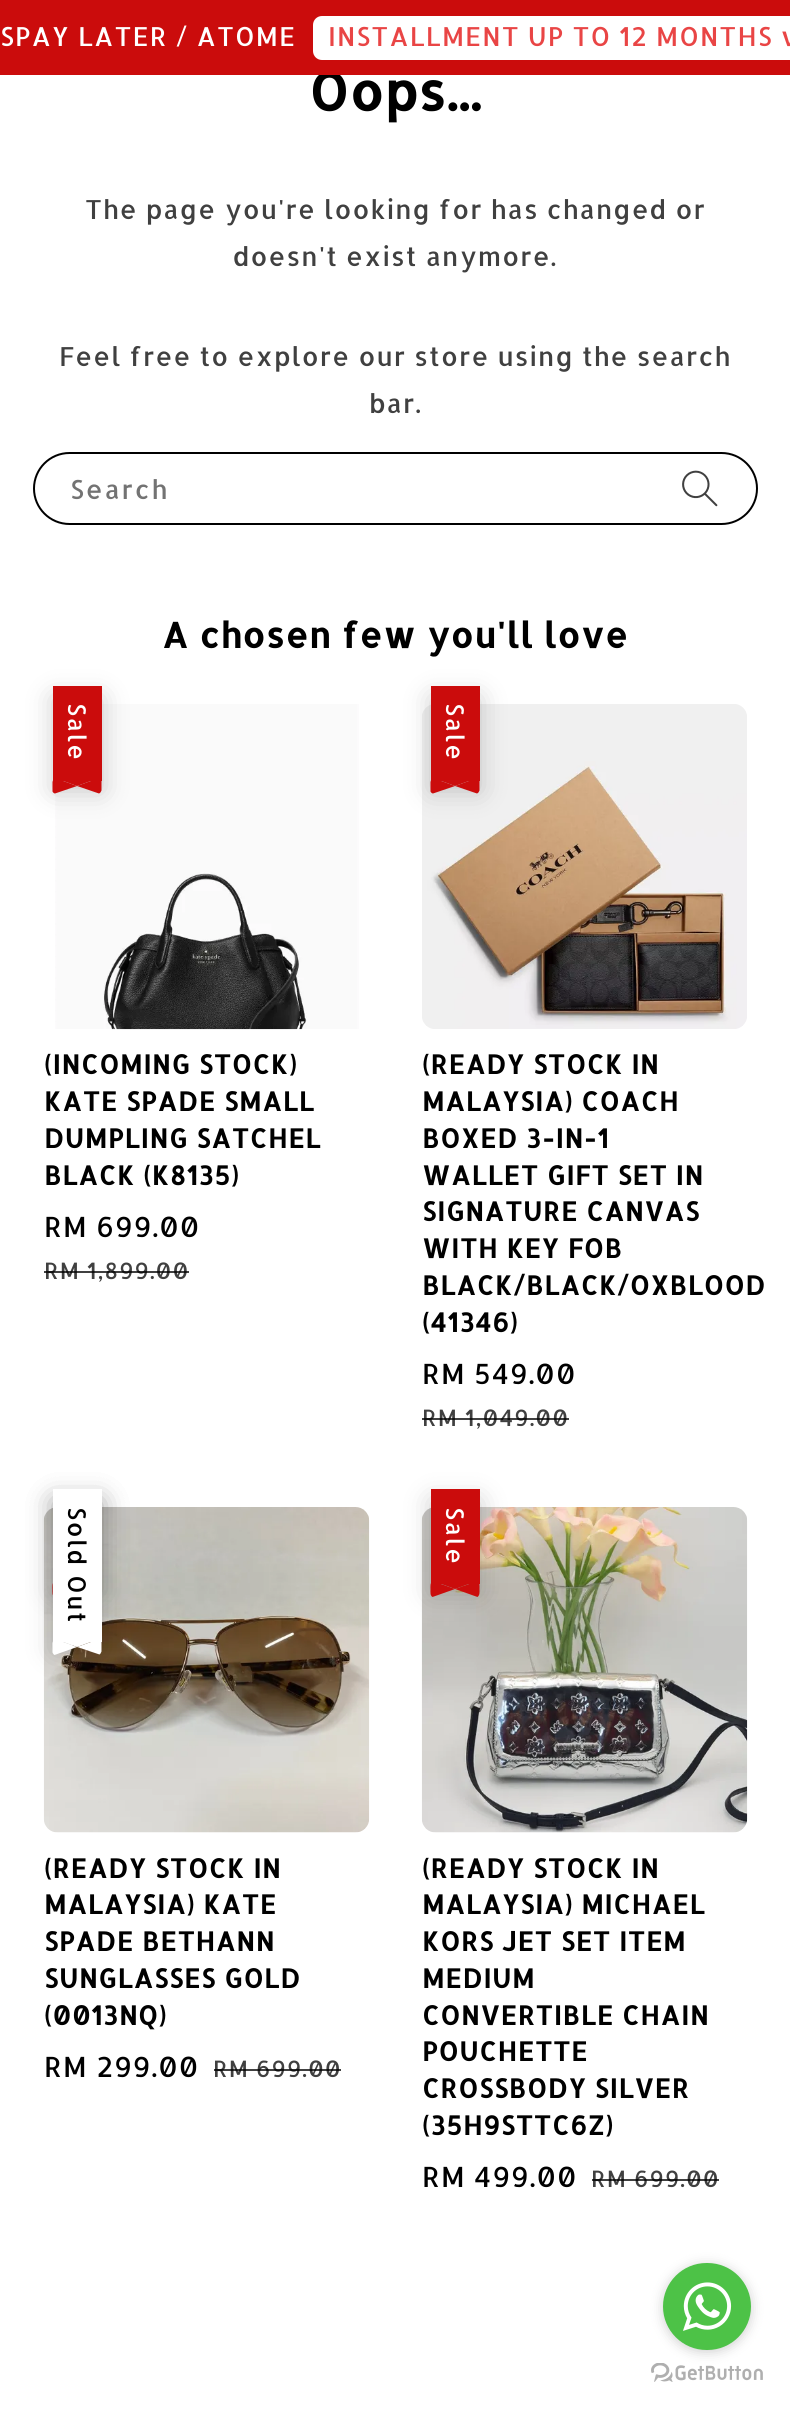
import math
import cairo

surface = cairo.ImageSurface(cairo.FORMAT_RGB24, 790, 2409)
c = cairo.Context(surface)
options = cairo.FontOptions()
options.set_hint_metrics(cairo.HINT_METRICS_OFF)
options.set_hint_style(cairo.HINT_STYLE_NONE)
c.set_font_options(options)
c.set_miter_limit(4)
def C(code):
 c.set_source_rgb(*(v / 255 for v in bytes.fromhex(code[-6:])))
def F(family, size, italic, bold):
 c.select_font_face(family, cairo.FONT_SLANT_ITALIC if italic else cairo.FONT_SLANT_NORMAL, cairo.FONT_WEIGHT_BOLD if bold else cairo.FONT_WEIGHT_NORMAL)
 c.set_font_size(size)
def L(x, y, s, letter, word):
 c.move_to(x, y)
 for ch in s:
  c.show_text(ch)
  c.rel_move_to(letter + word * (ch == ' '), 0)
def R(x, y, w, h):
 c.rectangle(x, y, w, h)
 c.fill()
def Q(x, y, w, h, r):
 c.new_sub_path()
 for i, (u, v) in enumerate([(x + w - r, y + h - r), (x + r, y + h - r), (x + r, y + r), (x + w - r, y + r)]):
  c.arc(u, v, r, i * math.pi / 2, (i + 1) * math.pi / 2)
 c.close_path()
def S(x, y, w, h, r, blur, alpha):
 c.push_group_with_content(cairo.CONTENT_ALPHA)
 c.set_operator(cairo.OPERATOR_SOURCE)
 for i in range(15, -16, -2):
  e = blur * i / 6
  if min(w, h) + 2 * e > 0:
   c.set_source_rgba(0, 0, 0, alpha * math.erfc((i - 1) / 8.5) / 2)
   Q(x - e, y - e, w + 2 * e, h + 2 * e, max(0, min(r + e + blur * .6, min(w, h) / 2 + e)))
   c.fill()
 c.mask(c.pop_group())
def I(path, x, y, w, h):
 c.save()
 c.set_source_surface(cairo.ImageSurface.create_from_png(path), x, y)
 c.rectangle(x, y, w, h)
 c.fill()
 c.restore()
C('ffffff')
c.paint()
F('Allerta',52.5,0,1)
C('000000')
L(309,111,'Oops...',1.05,0)
C('cb0c0c')
R(0,0,790,75)
F('Allerta',26.25,0,0)
C('ffffff')
L(0,46,'SPAY LATER / ATOME',1.05,0)
c.new_path()
c.move_to(322,16)
c.line_to(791,16)
c.line_to(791,60)
c.line_to(322,60)
c.curve_to(317,60,313,56,313,51)
c.line_to(313,25)
c.curve_to(313,20,317,16,322,16)
c.close_path()
c.fill()
C('e94545')
L(328,46,'INSTALLMENT UP TO 12 MONTHS v',1.05,0)
C('404040')
L(85,219,'The page you\'re looking for has changed or',1.05,0)
L(233,266,'doesn\'t exist anymore.',1.05,0)
L(59,366,'Feel free to explore our store using the search',1.05,0)
L(369,413,'bar.',1.05,0)
Q(34,453,723,71,35.5)
C('000000')
c.stroke()
C('737373')
L(70,499,'Search',1.75,0)
I('1.png',682,470,36,37)
F('Allerta',35,0,1)
C('000000')
L(162,648,'A chosen few you\'ll love',1.05,0)
I('2.png',55,704,304,326)
C('000000')
S(53,697,49,94,0,13,.2)
C('cb0c0c')
R(53,686,49,95)
F('Allerta',24.5,0,0)
C('ffffff')
c.save()
c.translate(68,703)
c.rotate(90 * math.pi / 180)
L(0,0,'Sale',1.75,0)
c.restore()
C('cb0c0c')
c.new_path()
c.move_to(58,777)
c.line_to(55,778)
c.line_to(77,786)
c.line_to(99,778)
c.line_to(97,777)
c.close_path()
c.fill()
c.new_path()
c.move_to(101.5,790.5)
c.curve_to(101,791.5,100.5,793,99,793.5)
c.line_to(77,786)
c.line_to(99,778)
c.curve_to(100,778.5,101,779.5,101.5,781)
c.close_path()
c.move_to(52.5,782)
c.curve_to(53,780,53.5,778.5,55,778)
c.line_to(77,786)
c.line_to(55,793.5)
c.curve_to(54,793.5,53,792.5,52.5,791.5)
c.close_path()
c.fill()
F('Allerta',26.25,0,1)
C('000000')
L(44,1074,'(INCOMING STOCK)',1.05,0)
L(44,1111,'KATE SPADE SMALL',1.05,0)
L(44,1148,'DUMPLING SATCHEL',1.05,0)
L(44,1185,'BLACK (K8135)',1.05,0)
F('Allerta',28,0,0)
L(44,1237,'RM 699.00',1.05,0)
F('Allerta',22.75,0,0)
C('404040')
L(44,1279,'RM 1,899.00',1.05,0)
c.set_source_rgba(0,0,0,0.75)
R(44,1271,145,2)
I('3.png',422,704,325,325)
C('000000')
S(431,697,49,94,0,13,.2)
C('cb0c0c')
R(431,686,49,95)
F('Allerta',24.5,0,0)
C('ffffff')
c.save()
c.translate(446,703)
c.rotate(90 * math.pi / 180)
L(0,0,'Sale',1.75,0)
c.restore()
C('cb0c0c')
c.new_path()
c.move_to(436,777)
c.line_to(433,778)
c.line_to(455,786)
c.line_to(477,778)
c.line_to(475,777)
c.close_path()
c.fill()
c.new_path()
c.move_to(479.5,790.5)
c.curve_to(479,791.5,478.5,793,477,793.5)
c.line_to(455,786)
c.line_to(477,778)
c.curve_to(478,778.5,479,779.5,479.5,781)
c.close_path()
c.move_to(430.5,782)
c.curve_to(431,780,431.5,778.5,433,778)
c.line_to(455,786)
c.line_to(433,793.5)
c.curve_to(432,793.5,431,792.5,430.5,791.5)
c.close_path()
c.fill()
F('Allerta',26.25,0,1)
C('000000')
L(422,1074,'(READY STOCK IN',1.05,0)
L(422,1111,'MALAYSIA) COACH',1.05,0)
L(422,1148,'BOXED 3-IN-1',1.05,0)
L(422,1185,'WALLET GIFT SET IN',1.05,0)
L(422,1221,'SIGNATURE CANVAS',1.05,0)
L(422,1258,'WITH KEY FOB',1.05,0)
L(422,1295,'BLACK/BLACK/OXBLOOD',1.05,0)
L(422,1332,'(41346)',1.05,0)
F('Allerta',28,0,0)
L(422,1384,'RM 549.00',1.05,0)
F('Allerta',22.75,0,0)
C('404040')
L(422,1426,'RM 1,049.00',1.05,0)
c.set_source_rgba(0,0,0,0.75)
R(422,1418,147,2)
I('4.png',43,1507,327,326)
C('000000')
S(53,1500,49,94,0,13,.2)
C('cb0c0c')
c.new_path()
c.move_to(77,1589)
c.line_to(54.5,1597)
c.curve_to(52,1595.5,52.5,1592.5,52.5,1589.5)
c.curve_to(52.5,1586.5,52,1583,54.5,1581)
c.close_path()
c.fill()
C('000000')
S(53,1500,49,152,0,13,.2)
C('ffffff')
R(53,1489,49,153)
F('Allerta',24.5,0,0)
C('000000')
c.save()
c.translate(68,1507)
c.rotate(90 * math.pi / 180)
L(0,0,'Sold Out',1.75,0)
c.restore()
C('ffffff')
c.new_path()
c.move_to(58,1638)
c.line_to(55,1639)
c.line_to(77,1647)
c.line_to(99,1639)
c.line_to(97,1638)
c.close_path()
c.fill()
c.new_path()
c.move_to(101.5,1651.5)
c.curve_to(101,1652.5,100.5,1654,99.5,1654.5)
c.line_to(77,1647)
c.line_to(99,1639)
c.curve_to(100,1639.5,101,1640.5,101.5,1642)
c.close_path()
c.move_to(52.5,1643)
c.curve_to(53,1641,53.5,1639.5,55,1639)
c.line_to(77,1647)
c.line_to(54.5,1655)
c.curve_to(53.5,1654.5,53,1653.5,52.5,1652.5)
c.close_path()
c.fill()
F('Allerta',26.25,0,1)
C('000000')
L(44,1878,'(READY STOCK IN',1.05,0)
L(44,1914,'MALAYSIA) KATE',1.05,0)
L(44,1951,'SPADE BETHANN',1.05,0)
L(44,1988,'SUNGLASSES GOLD',1.05,0)
L(44,2025,'(0013NQ)',1.05,0)
F('Allerta',28,0,0)
L(44,2077,'RM 299.00',1.05,0)
F('Allerta',22.75,0,0)
C('404040')
L(213,2077,'RM 699.00',1.05,0)
c.set_source_rgba(0,0,0,0.75)
R(214,2069,127,2)
I('5.png',421,1507,327,326)
C('000000')
S(431,1500,49,94,0,13,.2)
C('cb0c0c')
R(431,1489,49,95)
F('Allerta',24.5,0,0)
C('ffffff')
c.save()
c.translate(446,1507)
c.rotate(90 * math.pi / 180)
L(0,0,'Sale',1.75,0)
c.restore()
C('cb0c0c')
c.new_path()
c.move_to(455,1589)
c.line_to(433,1581)
c.line_to(434,1580)
c.curve_to(440,1580,475,1579,477,1581)
c.close_path()
c.fill()
c.new_path()
c.move_to(455,1589)
c.line_to(477.5,1581)
c.curve_to(480,1583,479.5,1586,479.5,1589)
c.curve_to(479.5,1592,480,1595,477.5,1597)
c.close_path()
c.move_to(455,1589)
c.line_to(432.5,1597)
c.curve_to(430,1595.5,430.5,1592.5,430.5,1589.5)
c.curve_to(430.5,1586.5,430,1583,432.5,1581)
c.close_path()
c.fill()
F('Allerta',26.25,0,1)
C('000000')
L(422,1878,'(READY STOCK IN',1.05,0)
L(422,1914,'MALAYSIA) MICHAEL',1.05,0)
L(422,1951,'KORS JET SET ITEM',1.05,0)
L(422,1988,'MEDIUM',1.05,0)
L(422,2025,'CONVERTIBLE CHAIN',1.05,0)
L(422,2061,'POUCHETTE',1.05,0)
L(422,2098,'CROSSBODY SILVER',1.05,0)
L(422,2135,'(35H9STTC6Z)',1.05,0)
F('Allerta',28,0,0)
L(422,2187,'RM 499.00',1.05,0)
F('Allerta',22.75,0,0)
C('404040')
L(591,2187,'RM 699.00',1.05,0)
c.set_source_rgba(0,0,0,0.75)
R(592,2179,127,2)
I('7.png',651,2363,112,19)
C('888888')
S(663,2265,88,87,43.5,6,.4)
C('4dc247')
Q(663,2263,88,87,43.5)
c.fill()
I('6.png',683,2282,49,49)
surface.write_to_png('o.png')
